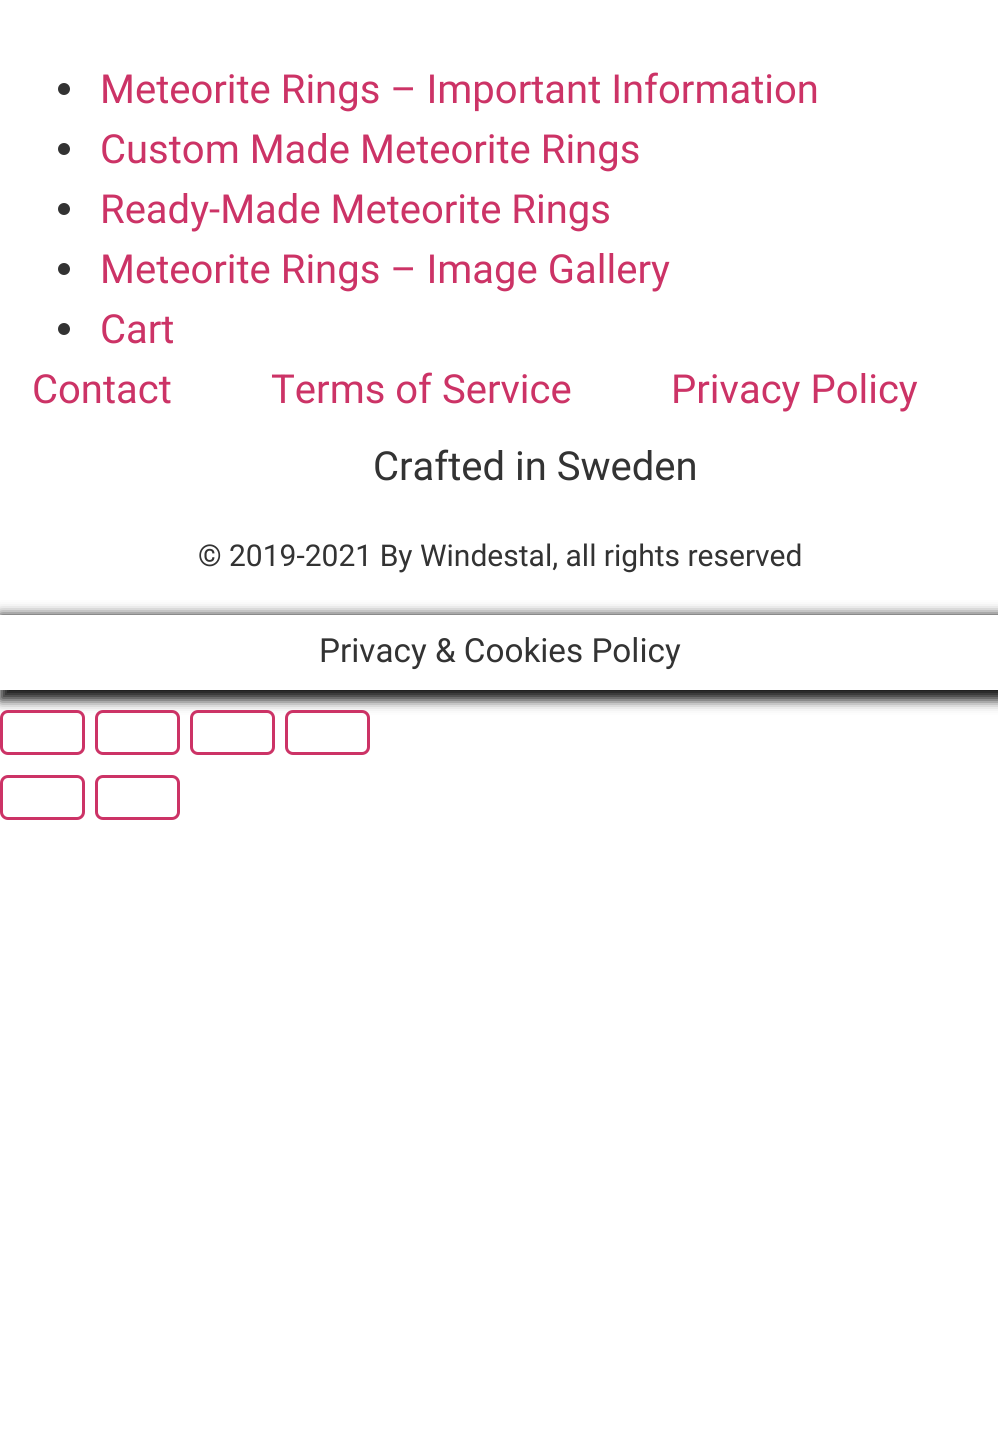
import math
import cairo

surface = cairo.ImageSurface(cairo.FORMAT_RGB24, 998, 1436)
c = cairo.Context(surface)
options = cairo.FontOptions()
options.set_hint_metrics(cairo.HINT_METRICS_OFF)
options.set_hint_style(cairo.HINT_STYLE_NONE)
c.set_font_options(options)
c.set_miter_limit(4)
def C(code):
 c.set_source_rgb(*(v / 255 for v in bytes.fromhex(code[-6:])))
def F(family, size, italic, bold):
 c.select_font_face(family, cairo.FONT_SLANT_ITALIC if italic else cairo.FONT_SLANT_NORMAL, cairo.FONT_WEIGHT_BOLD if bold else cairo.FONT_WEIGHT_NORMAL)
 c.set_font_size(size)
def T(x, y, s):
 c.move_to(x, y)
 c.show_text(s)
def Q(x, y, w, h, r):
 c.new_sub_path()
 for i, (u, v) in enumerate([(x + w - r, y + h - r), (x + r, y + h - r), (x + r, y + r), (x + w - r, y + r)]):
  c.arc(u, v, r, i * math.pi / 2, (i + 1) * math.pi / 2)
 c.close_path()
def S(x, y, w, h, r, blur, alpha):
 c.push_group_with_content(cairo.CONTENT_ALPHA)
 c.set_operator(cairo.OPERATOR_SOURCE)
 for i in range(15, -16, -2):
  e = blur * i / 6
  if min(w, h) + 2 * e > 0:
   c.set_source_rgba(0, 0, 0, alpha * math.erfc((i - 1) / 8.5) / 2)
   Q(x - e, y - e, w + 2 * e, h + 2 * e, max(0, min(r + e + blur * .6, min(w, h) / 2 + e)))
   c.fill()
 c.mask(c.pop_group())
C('ffffff')
c.paint()
C('333333')
c.arc(64,89,6,0,2 * math.pi)
c.fill()
F('Roboto',40,0,0)
C('cc3366')
T(100,103,'Meteorite Rings – Important Information')
C('333333')
c.new_path()
c.arc(64,149,6,0,2 * math.pi)
c.fill()
C('cc3366')
T(100,163,'Custom Made Meteorite Rings')
C('333333')
c.new_path()
c.arc(64,209,6,0,2 * math.pi)
c.fill()
C('cc3366')
T(100,223,'Ready-Made Meteorite Rings')
C('333333')
c.new_path()
c.arc(64,269,6,0,2 * math.pi)
c.fill()
C('cc3366')
T(100,283,'Meteorite Rings – Image Gallery')
C('333333')
c.new_path()
c.arc(64,329,6,0,2 * math.pi)
c.fill()
C('cc3366')
T(100,343,'Cart')
T(32,403,'Contact')
T(271,403,'Terms of Service')
T(671,403,'Privacy Policy')
C('333333')
T(373,480,'Crafted in Sweden')
F('Roboto',30,0,0)
T(198,566,'© 2019-2021 By Windestal, all rights reserved')
c.save()
c.set_fill_rule(cairo.FILL_RULE_EVEN_ODD)
c.new_path()
c.move_to(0,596)
c.line_to(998,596)
c.line_to(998,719)
c.line_to(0,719)
c.close_path()
c.move_to(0,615)
c.line_to(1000,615)
c.line_to(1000,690)
c.line_to(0,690)
c.close_path()
c.clip()
C('161616')
S(0,615,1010,85,0,6,1)
c.restore()
F('Roboto',33.25,0,0)
T(319,662,'Privacy & Cookies Policy')
Q(1.5,711.5,82,42,6.5)
C('cc3366')
c.set_line_width(3)
c.stroke()
Q(96.5,711.5,82,42,6.5)
c.stroke()
Q(191.5,711.5,82,42,6.5)
c.stroke()
Q(286.5,711.5,82,42,6.5)
c.stroke()
Q(1.5,776.5,82,42,6.5)
c.stroke()
Q(96.5,776.5,82,42,6.5)
c.stroke()
surface.write_to_png('o.png')
